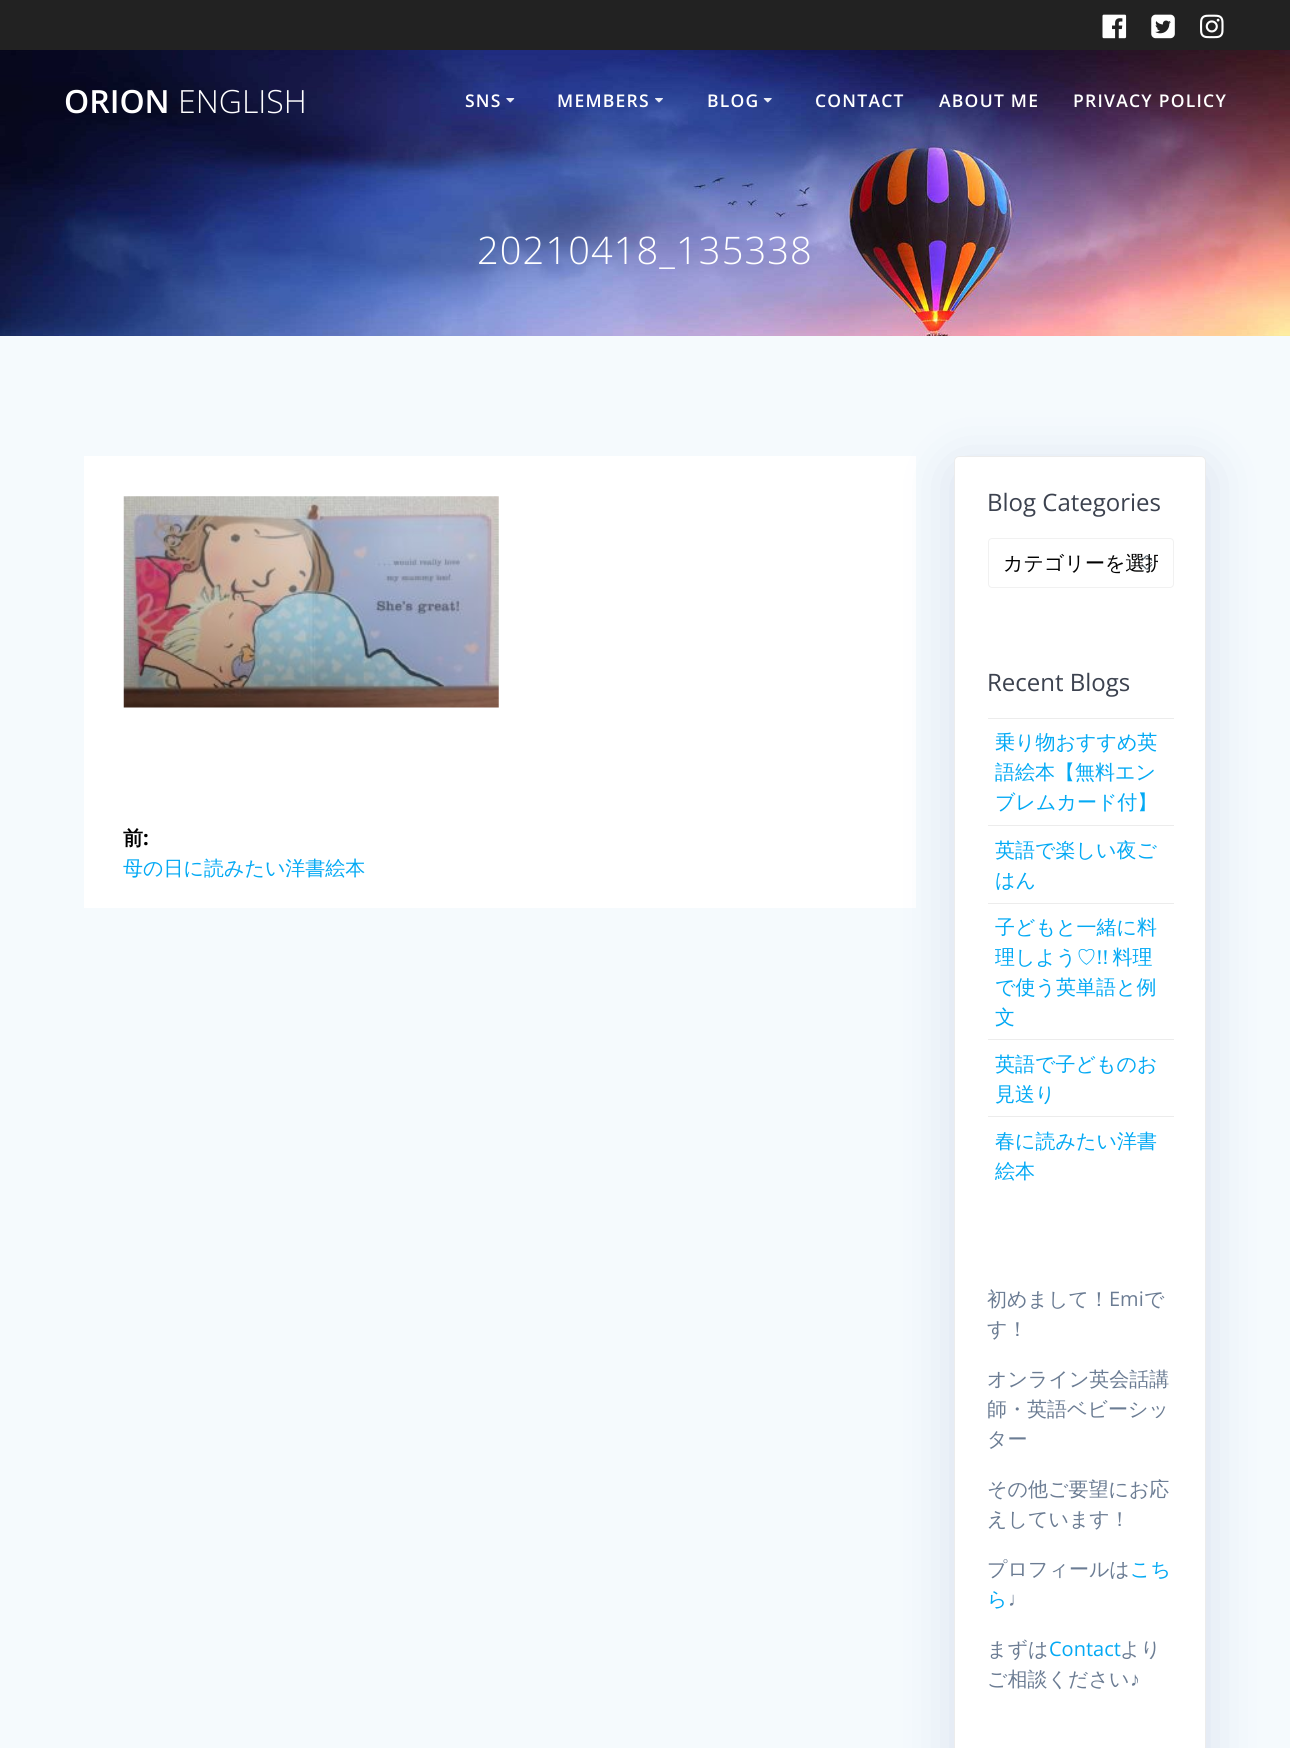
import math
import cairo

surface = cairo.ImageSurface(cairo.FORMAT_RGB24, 1290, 1748)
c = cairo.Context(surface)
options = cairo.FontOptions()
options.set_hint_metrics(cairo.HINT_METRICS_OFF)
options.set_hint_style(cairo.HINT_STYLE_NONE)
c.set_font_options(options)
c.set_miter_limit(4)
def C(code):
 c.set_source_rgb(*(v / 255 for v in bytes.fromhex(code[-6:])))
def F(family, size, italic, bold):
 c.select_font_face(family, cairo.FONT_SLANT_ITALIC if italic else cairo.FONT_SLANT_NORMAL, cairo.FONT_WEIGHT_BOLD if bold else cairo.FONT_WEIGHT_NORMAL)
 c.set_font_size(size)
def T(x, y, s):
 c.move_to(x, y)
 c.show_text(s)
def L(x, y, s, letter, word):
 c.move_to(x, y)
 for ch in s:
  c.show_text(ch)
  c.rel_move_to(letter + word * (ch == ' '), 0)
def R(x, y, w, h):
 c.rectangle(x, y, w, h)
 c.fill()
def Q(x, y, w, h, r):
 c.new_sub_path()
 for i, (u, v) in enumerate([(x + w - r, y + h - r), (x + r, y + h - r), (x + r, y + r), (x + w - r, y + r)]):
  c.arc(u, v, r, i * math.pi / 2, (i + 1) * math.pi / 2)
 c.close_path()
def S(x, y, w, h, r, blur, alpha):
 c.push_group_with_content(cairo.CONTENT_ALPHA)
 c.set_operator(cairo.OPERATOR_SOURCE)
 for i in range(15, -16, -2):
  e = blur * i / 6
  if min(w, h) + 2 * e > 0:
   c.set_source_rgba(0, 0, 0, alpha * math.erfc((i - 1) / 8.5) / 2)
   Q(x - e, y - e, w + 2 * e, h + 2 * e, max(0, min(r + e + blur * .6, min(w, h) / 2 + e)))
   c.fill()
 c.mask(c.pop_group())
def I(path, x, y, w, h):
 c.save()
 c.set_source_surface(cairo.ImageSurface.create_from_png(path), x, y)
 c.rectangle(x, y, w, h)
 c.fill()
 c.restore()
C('ffffff')
c.paint()
C('222222')
R(0,0,1290,50)
I('1.png',1102,14,25,25)
I('2.png',1151,14,24,25)
I('3.png',1200,14,24,25)
I('7.png',0,50,1290,286)
F('Open Sans SemiBold',32,0,0)
C('ffffff')
T(64,113,'ORION')
F('Open Sans Light',32,0,0)
T(178,113,'ENGLISH')
F('Open Sans SemiBold',17.5,0,0)
L(465,107,'SNS',1.25,0)
I('4.png',506,98,9,5)
L(557,107,'MEMBERS',1.25,0)
I('5.png',655,98,8,5)
L(707,107,'BLOG',1.25,0)
I('6.png',763,98,9,5)
L(815,107,'CONTACT',1.25,0)
L(939,107,'ABOUT ME',1.25,0)
L(1073,107,'PRIVACY POLICY',1.25,0)
F('Open Sans Light',38,0,0)
L(477,264,'20210418_135338',1.1,0)
C('f5fafd')
R(0,336,1290,1412)
C('ffffff')
R(84,456,832,452)
I('8.png',123,496,376,212)
F('WenQuanYi Zen Hei',20,0,1)
C('000000')
T(123,845,'前')
F('Open Sans',20,0,1)
T(143,845,':')
F('WenQuanYi Zen Hei Medium',20,0,0)
C('03a9f4')
T(123,875,'母の日に読みたい洋書絵本')
C('234598')
S(954,468,252,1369,5,28,.15)
C('ffffff')
Q(954.5,456.5,251,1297,4.5)
c.fill_preserve()
C('ececec')
c.set_line_width(1)
c.stroke()
F('Open Sans',24,0,0)
C('3c424f')
T(987,511,'Blog Categories')
I('9.png',1141,555,12,15)
Q(988.5,538.5,185,49,3.5)
C('f1f1f1')
c.stroke()
c.save()
c.rectangle(1004,549,154,27)
c.clip()
F('WenQuanYi Zen Hei Medium',20,0,0)
C('000000')
T(1003,570,'カテゴリーを選択')
c.restore()
C('3c424f')
T(987,691,'Recent Blogs')
C('ececec')
R(988,718,186,1)
F('WenQuanYi Zen Hei Medium',20,0,0)
C('03a9f4')
T(995,749,'乗り物おすすめ英')
T(995,779,'語絵本【無料エン')
T(995,809,'ブレムカード付】')
C('ececec')
R(988,825,186,1)
C('03a9f4')
T(995,857,'英語で楽しい夜ご')
T(995,887,'はん')
C('ececec')
R(988,903,186,1)
C('03a9f4')
T(995,934,'子どもと一緒に料')
L(995,964,'理しよう♡!! 料理',0,-2)
T(995,994,'で使う英単語と例')
T(995,1024,'文')
C('ececec')
R(988,1039,186,1)
C('03a9f4')
T(995,1071,'英語で子どものお')
T(995,1101,'見送り')
C('ececec')
R(988,1116,186,1)
C('03a9f4')
T(995,1148,'春に読みたい洋書')
T(995,1178,'絵本')
C('6b7c93')
T(987,1306,'初めまして！')
F('Open Sans',20,0,0)
T(1109,1306,'Emi')
F('WenQuanYi Zen Hei Medium',20,0,0)
T(1144,1306,'で')
T(987,1336,'す！')
T(987,1386,'オンライン英会話講')
T(987,1416,'師・英語ベビーシッ')
T(987,1446,'ター')
T(987,1496,'その他ご要望にお応')
T(987,1526,'えしています！')
T(987,1576,'プロフィールは')
C('03a9f4')
T(1130,1576,'こち')
T(987,1606,'ら')
F('Liberation Sans',20,0,0)
C('6b7c93')
T(1008,1606,'♩')
F('WenQuanYi Zen Hei Medium',20,0,0)
T(987,1656,'まずは')
F('Open Sans',20,0,0)
C('03a9f4')
T(1049,1656,'Contact')
F('WenQuanYi Zen Hei Medium',20,0,0)
C('6b7c93')
T(1120,1656,'より')
T(987,1686,'ご相談ください')
F('Liberation Sans',20,0,0)
T(1130,1686,'♪')
surface.write_to_png('o.png')
